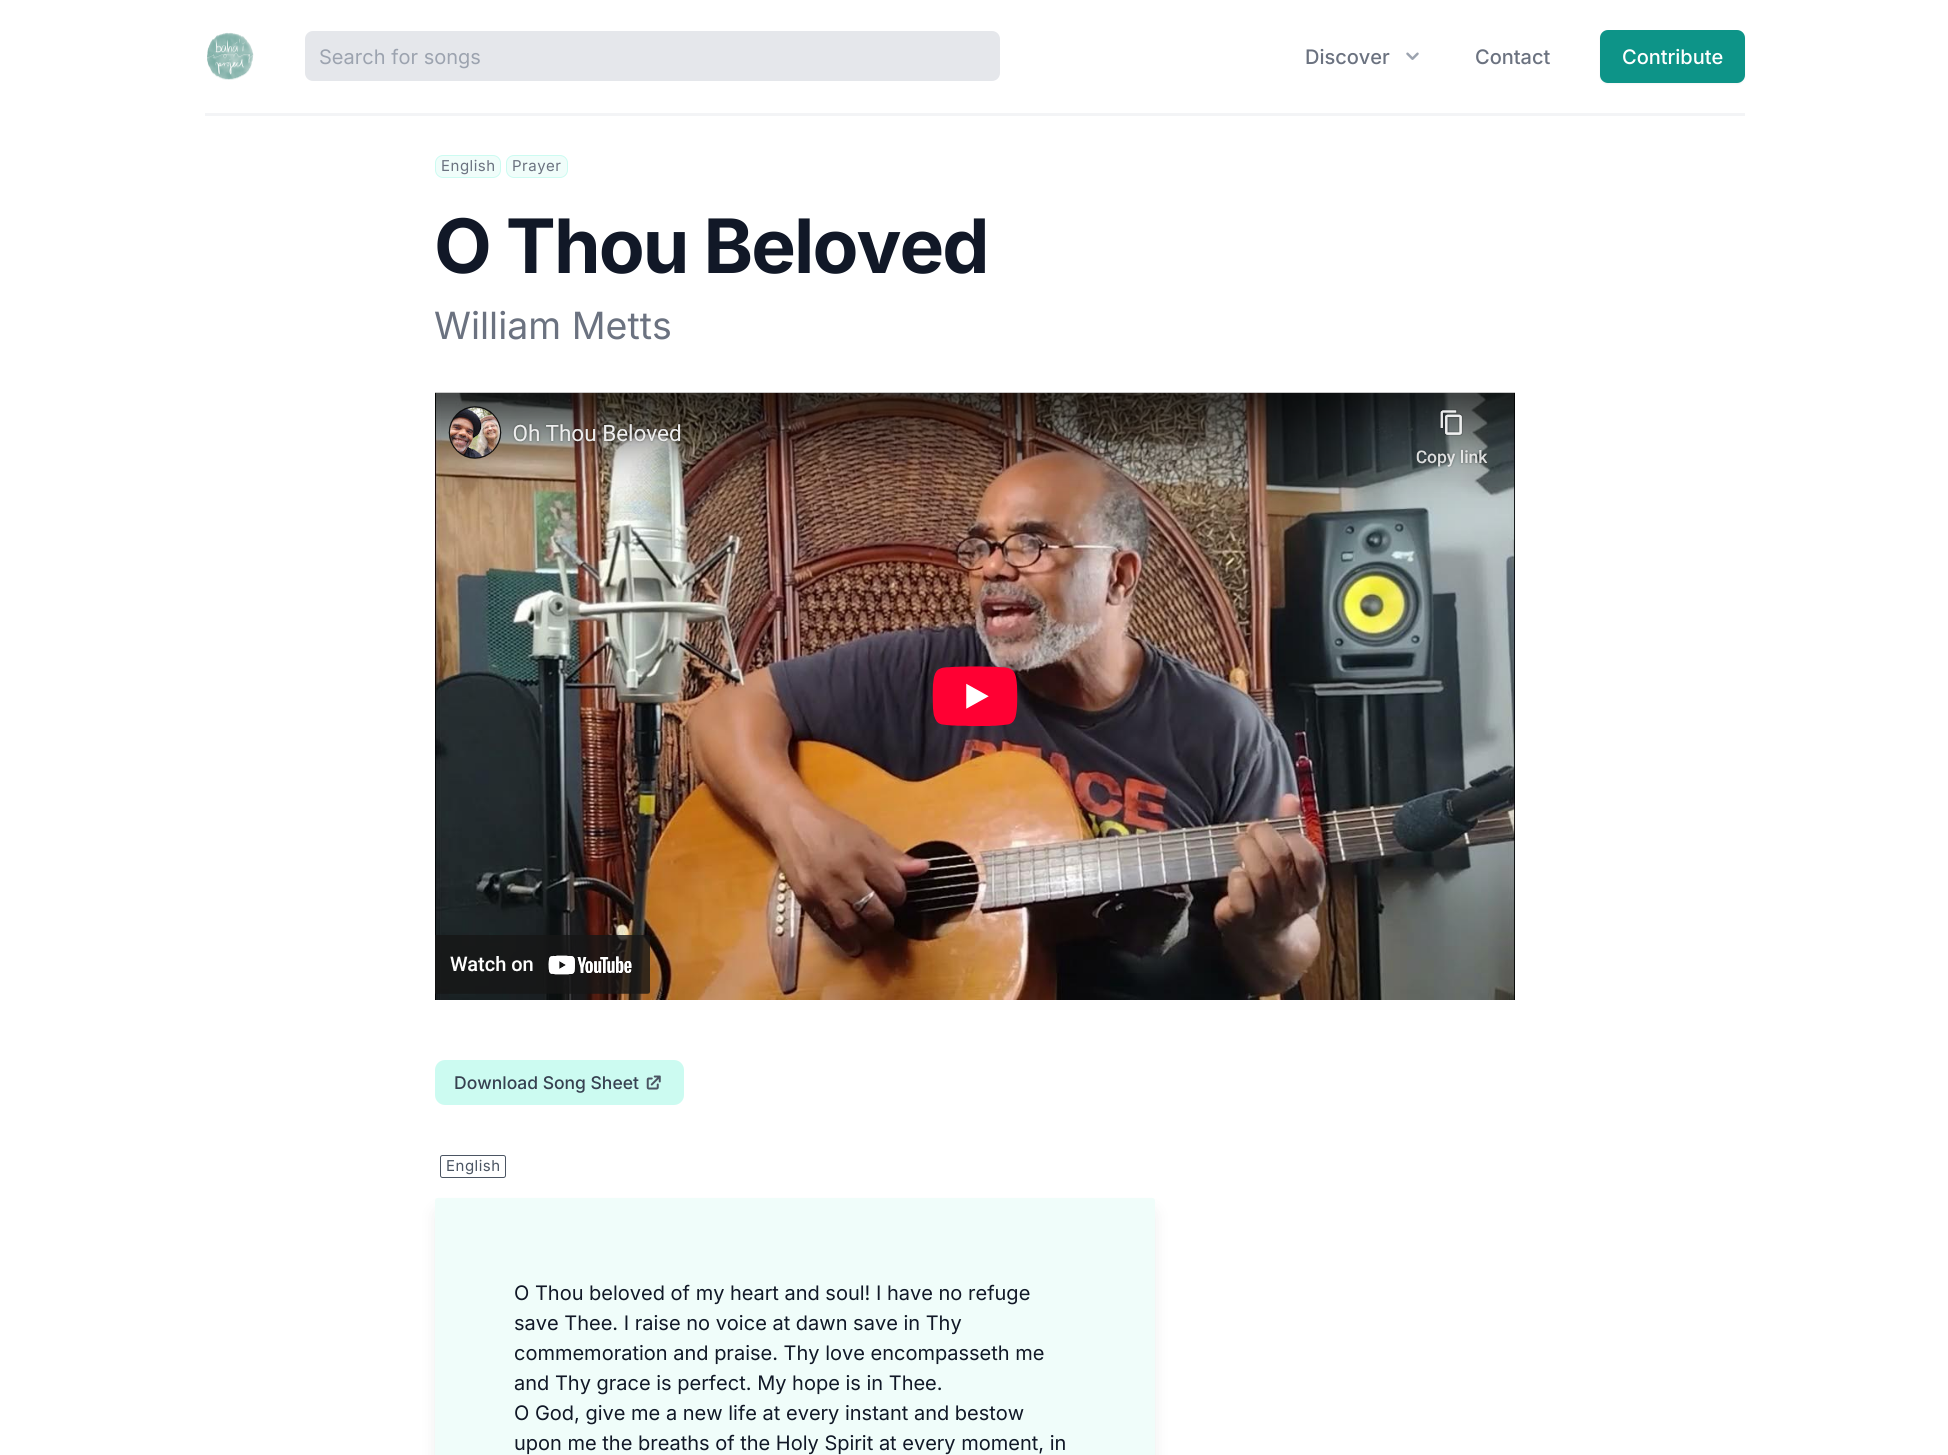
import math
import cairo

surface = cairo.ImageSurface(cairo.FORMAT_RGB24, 1948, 1455)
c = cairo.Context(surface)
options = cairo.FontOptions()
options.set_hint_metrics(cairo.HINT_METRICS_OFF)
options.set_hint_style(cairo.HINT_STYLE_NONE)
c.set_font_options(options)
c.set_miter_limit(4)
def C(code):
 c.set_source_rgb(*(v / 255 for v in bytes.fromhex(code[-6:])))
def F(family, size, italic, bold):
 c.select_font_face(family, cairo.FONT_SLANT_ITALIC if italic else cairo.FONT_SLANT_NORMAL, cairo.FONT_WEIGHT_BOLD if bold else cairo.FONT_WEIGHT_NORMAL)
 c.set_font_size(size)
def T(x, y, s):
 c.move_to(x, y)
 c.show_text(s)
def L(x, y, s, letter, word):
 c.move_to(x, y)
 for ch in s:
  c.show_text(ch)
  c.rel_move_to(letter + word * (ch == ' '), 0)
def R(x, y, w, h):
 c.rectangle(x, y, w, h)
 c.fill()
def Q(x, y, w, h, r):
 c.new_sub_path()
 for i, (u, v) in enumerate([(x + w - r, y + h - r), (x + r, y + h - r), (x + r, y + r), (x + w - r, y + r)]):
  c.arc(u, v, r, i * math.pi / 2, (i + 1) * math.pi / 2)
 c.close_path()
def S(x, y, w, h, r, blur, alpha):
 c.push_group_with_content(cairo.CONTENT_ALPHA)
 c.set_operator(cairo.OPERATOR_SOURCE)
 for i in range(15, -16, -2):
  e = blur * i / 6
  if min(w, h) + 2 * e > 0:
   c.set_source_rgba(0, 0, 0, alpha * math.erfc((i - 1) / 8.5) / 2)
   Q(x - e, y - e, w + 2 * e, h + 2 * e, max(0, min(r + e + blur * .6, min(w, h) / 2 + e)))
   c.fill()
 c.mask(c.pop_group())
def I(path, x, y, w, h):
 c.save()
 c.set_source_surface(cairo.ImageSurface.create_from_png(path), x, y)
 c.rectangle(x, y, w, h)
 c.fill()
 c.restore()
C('ffffff')
c.paint()
C('f3f4f6')
R(205,113,1540,3)
I('1.png',207,32,47,48)
C('e5e7eb')
Q(305,31,695,50,8)
c.fill()
F('Inter',20,0,0)
C('9ca3af')
T(319,64,'Search for songs')
F('Inter Medium',20,0,0)
C('6b7280')
T(1305,64,'Discover')
I('2.png',1406,52,13,8)
T(1475,64,'Contact')
C('000000')
S(1600,31,145,53,8,1,.05)
C('0d9488')
Q(1600,30,145,53,8)
c.fill()
C('ffffff')
T(1622,64,'Contribute')
C('f0fdfa')
Q(435.5,155.5,65,22,7.5)
c.fill_preserve()
C('ccfbf1')
c.set_line_width(1)
c.stroke()
F('Inter',15,0,0)
C('6b7280')
L(441,171,'English',.5,0)
C('f0fdfa')
Q(506.5,155.5,61,22,7.5)
c.fill_preserve()
C('ccfbf1')
c.stroke()
C('6b7280')
L(512,171,'Prayer',.5,0)
F('Inter',75,0,1)
C('111827')
L(434,273,'O Thou Beloved',-1.9,0)
F('Inter',37.5,0,0)
C('6b7280')
T(434,339,'William Metts')
I('3.png',435,392,1080,608)
C('ccfbf1')
Q(435,1060,249,45,10)
c.fill()
F('Inter Medium',17.5,0,0)
C('374151')
T(454,1089,'Download Song Sheet')
I('4.png',646,1075,15,15)
Q(440.5,1155.5,65,22,2)
C('4b5563')
c.stroke()
F('Inter',15,0,0)
L(446,1171,'English',.5,0)
C('000000')
S(439,1214,712,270,0,9.5,.1)
C('f0fdfa')
Q(435,1198,720,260,2.5)
c.fill()
F('Inter',20,0,0)
C('111827')
T(514,1300,'O Thou beloved of my heart and soul! I have no refuge')
T(514,1330,'save Thee. I raise no voice at dawn save in Thy')
T(514,1360,'commemoration and praise. Thy love encompasseth me')
T(514,1390,'and Thy grace is perfect. My hope is in Thee.')
T(514,1420,'O God, give me a new life at every instant and bestow')
T(514,1450,'upon me the breaths of the Holy Spirit at every moment, in')
surface.write_to_png('o.png')
